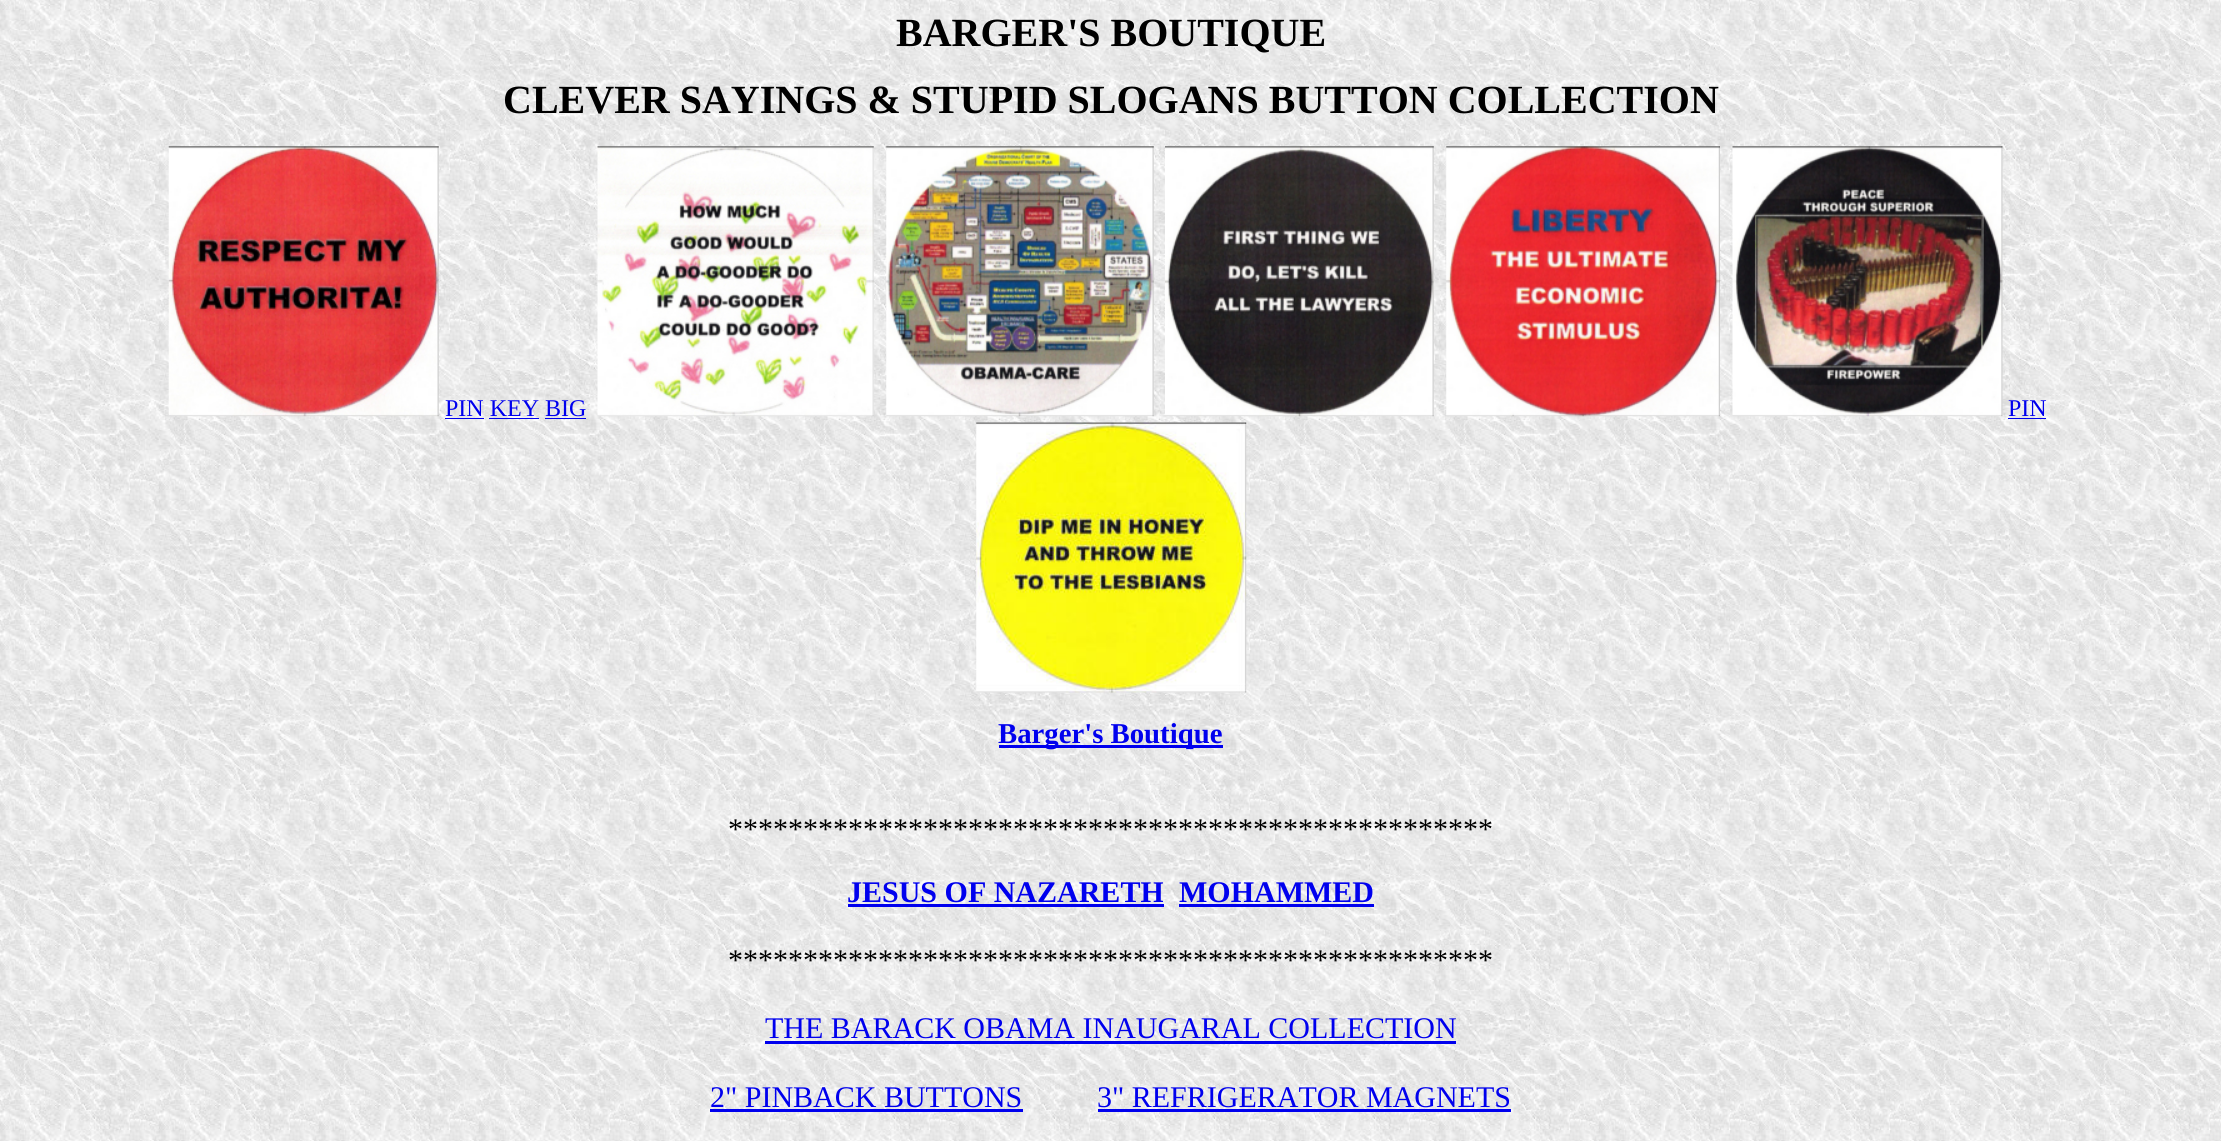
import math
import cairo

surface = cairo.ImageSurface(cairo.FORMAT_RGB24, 2221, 1141)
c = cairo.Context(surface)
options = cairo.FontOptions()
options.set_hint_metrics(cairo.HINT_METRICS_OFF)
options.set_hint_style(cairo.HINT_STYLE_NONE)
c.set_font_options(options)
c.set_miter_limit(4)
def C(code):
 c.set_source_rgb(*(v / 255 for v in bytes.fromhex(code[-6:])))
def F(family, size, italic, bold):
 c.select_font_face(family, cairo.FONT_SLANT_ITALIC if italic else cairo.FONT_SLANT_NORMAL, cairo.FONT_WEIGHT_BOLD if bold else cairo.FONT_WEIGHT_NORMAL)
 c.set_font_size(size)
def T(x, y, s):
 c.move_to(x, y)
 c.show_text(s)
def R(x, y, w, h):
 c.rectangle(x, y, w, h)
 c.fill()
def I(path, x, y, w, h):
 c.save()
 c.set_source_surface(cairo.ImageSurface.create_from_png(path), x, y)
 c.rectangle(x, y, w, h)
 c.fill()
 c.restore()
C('ffffff')
c.paint()
I('1.png',0,0,2221,1141)
F('Liberation Serif',40,0,1)
C('000000')
T(896,46,'BARGER\'S BOUTIQUE')
T(503,113,'CLEVER SAYINGS & STUPID SLOGANS BUTTON COLLECTION')
I('2.png',168,146,271,271)
F('Liberation Serif',24,0,0)
C('0000ee')
T(445,416,'PIN KEY BIG')
R(445,418,39,1)
I('3.png',597,146,277,271)
I('4.png',886,146,268,271)
I('5.png',1165,146,269,271)
I('6.png',1446,146,274,271)
I('7.png',1732,146,271,271)
T(2008,416,'PIN')
R(2008,418,38,1)
R(489,418,50,1)
R(545,418,41,1)
I('8.png',976,422,271,271)
R(999,745,224,3)
F('Liberation Serif',28.75,0,1)
T(998,743,'Barger\'s Boutique')
F('Liberation Serif',30,0,0)
C('000000')
T(728,839,'***************************************************')
F('Liberation Serif',30,0,1)
C('0000ee')
T(847,902,'JESUS OF NAZARETH')
R(848,904,316,3)
T(1179,902,'MOHAMMED')
R(1179,904,195,3)
F('Liberation Serif',30,0,0)
C('000000')
T(728,970,'***************************************************')
C('0000ee')
T(765,1038,'THE BARACK OBAMA INAUGARAL COLLECTION')
R(765,1041,691,3)
T(710,1107,'2" PINBACK BUTTONS')
R(710,1109,313,3)
T(1097,1107,'3" REFRIGERATOR MAGNETS')
R(1098,1109,413,3)
surface.write_to_png('o.png')
